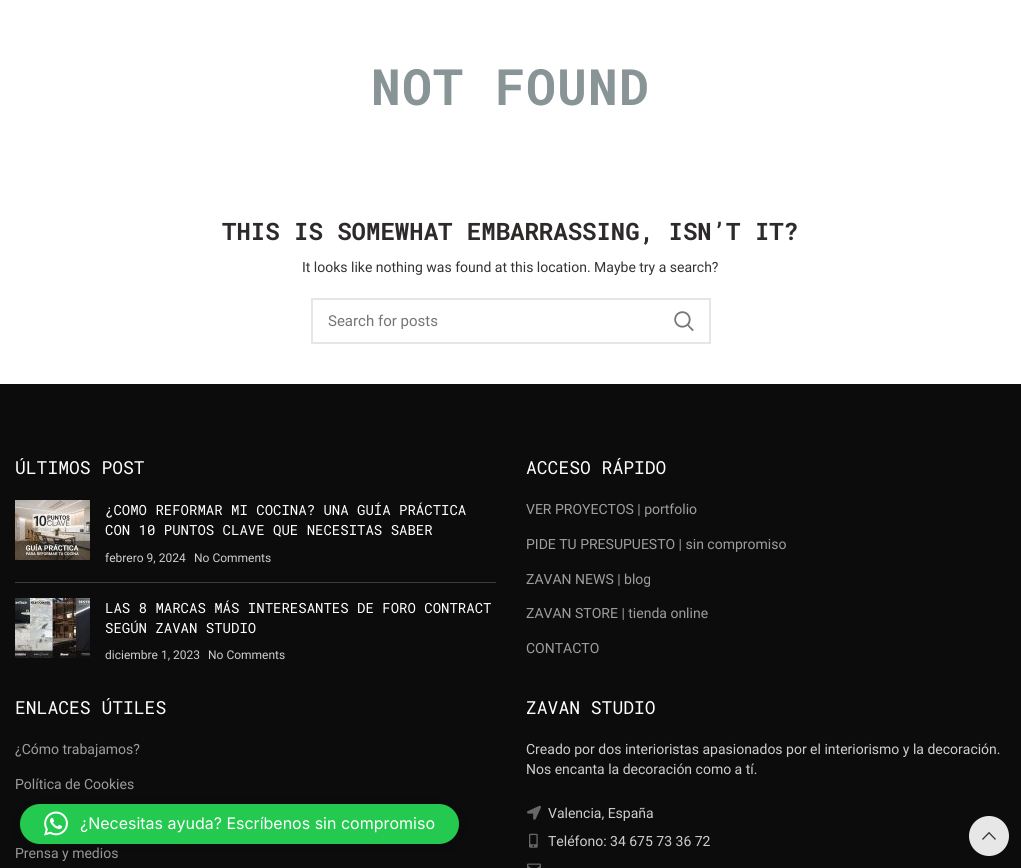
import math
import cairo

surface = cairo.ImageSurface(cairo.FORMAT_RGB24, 1021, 868)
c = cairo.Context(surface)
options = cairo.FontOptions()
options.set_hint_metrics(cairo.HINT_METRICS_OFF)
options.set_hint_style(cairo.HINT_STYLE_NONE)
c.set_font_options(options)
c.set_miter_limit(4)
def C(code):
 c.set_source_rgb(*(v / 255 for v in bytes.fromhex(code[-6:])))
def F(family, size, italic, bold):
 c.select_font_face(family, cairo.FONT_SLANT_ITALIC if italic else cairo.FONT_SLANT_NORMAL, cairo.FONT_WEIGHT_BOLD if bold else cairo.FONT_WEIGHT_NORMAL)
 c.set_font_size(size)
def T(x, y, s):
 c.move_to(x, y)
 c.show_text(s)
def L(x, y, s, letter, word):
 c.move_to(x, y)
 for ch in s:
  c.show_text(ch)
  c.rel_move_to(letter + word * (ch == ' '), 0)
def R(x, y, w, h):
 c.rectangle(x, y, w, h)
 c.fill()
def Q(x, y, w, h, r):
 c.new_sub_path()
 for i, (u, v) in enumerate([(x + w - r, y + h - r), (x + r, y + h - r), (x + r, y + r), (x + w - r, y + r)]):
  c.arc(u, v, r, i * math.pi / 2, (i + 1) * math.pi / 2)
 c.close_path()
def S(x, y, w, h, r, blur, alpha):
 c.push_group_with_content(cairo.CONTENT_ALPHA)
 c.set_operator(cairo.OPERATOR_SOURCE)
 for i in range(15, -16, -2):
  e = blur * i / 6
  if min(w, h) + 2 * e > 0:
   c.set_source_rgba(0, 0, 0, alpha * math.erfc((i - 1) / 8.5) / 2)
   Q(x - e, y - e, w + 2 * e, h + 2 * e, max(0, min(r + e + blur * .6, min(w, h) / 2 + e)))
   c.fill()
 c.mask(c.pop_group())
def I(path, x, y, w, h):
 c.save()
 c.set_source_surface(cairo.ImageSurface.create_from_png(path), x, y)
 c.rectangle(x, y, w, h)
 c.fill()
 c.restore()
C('ffffff')
c.paint()
F('Roboto Mono',50,0,1)
C('889496')
L(371,105,'NOT FOUND',1,0)
F('Roboto Mono',24,0,1)
C('2d2a2a')
T(222,240,'THIS IS SOMEWHAT EMBARRASSING, ISN’T IT?')
F('Roboto',14,0,0)
C('333333')
T(302,272,'It looks like nothing was found at this location. Maybe try a search?')
c.rectangle(312,299,398,44)
C('e6e6e6')
c.stroke()
F('Roboto',15,0,0)
C('757575')
T(328,326,'Search for posts')
I('1.png',674,311,20,21)
C('0c0c0c')
R(0,384,1021,484)
F('Roboto Mono',18,0,0)
C('ffffff')
T(15,474,'ÚLTIMOS POST')
C('3d3d3d')
R(15,582,481,1)
I('2.png',15,500,75,60)
F('Roboto Mono',14,0,0)
C('ffffff')
T(105,515,'¿COMO REFORMAR MI COCINA? UNA GUÍA PRÁCTICA')
T(105,535,'CON 10 PUNTOS CLAVE QUE NECESITAS SABER')
F('Roboto',12,0,0)
C('cecece')
T(105,562,'febrero 9, 2024')
T(194,562,'No Comments')
I('3.png',15,598,75,60)
F('Roboto Mono',14,0,0)
C('ffffff')
T(105,613,'LAS 8 MARCAS MÁS INTERESANTES DE FORO CONTRACT')
T(105,633,'SEGÚN ZAVAN STUDIO')
F('Roboto',12,0,0)
C('cecece')
T(105,659,'diciembre 1, 2023')
T(208,659,'No Comments')
F('Roboto Mono',18,0,0)
C('ffffff')
T(526,474,'ACCESO RÁPIDO')
F('Roboto',14,0,0)
C('9e9e9e')
T(526,514,'VER PROYECTOS | portfolio')
T(526,549,'PIDE TU PRESUPUESTO | sin compromiso')
T(526,584,'ZAVAN NEWS | blog')
T(526,618,'ZAVAN STORE | tienda online')
T(526,653,'CONTACTO')
F('Roboto Mono',18,0,0)
C('ffffff')
T(15,714,'ENLACES ÚTILES')
F('Roboto',14,0,0)
C('9e9e9e')
T(15,754,'¿Cómo trabajamos?')
T(15,789,'Política de Cookies')
T(15,858,'Prensa y medios')
F('Roboto Mono',18,0,0)
C('ffffff')
T(526,714,'ZAVAN STUDIO')
F('Roboto',14,0,0)
C('cecece')
T(526,754,'Creado por dos interioristas apasionados por el interiorismo y la decoración.')
T(526,774,'Nos encanta la decoración como a tí.')
I('4.png',527,805,14,15)
T(548,818,'Valencia, España')
I('5.png',529,833,9,15)
T(548,846,'Teléfono: 34 675 73 36 72')
I('6.png',527,863,14,5)
C('000000')
S(20,806,439,40,20,16,.16)
C('24c950')
Q(20,804,439,40,20)
c.fill()
I('7.png',44,811,24,25)
F('Inter',16,0,0)
C('ffffff')
T(80,829,'¿Necesitas ayuda? Escríbenos sin compromiso')
C('e7e7e7')
c.new_path()
c.arc(989,836,20,0,2 * math.pi)
c.fill()
I('8.png',982,832,14,8)
surface.write_to_png('o.png')
